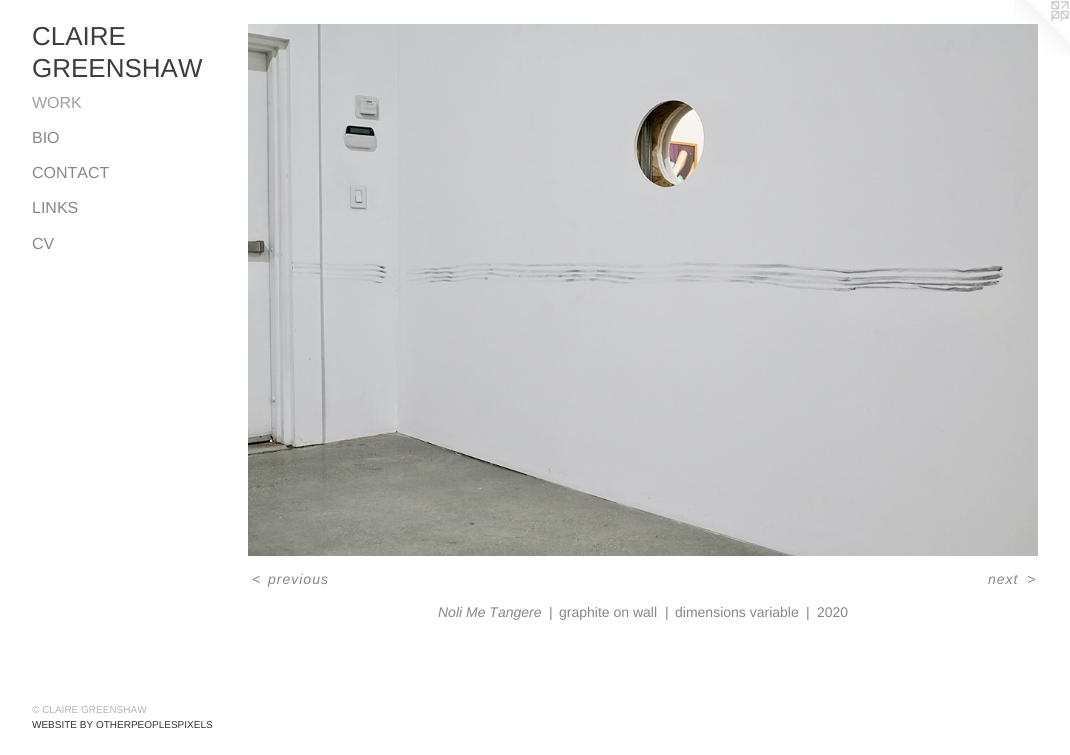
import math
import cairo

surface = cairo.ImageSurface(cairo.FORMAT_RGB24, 1070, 755)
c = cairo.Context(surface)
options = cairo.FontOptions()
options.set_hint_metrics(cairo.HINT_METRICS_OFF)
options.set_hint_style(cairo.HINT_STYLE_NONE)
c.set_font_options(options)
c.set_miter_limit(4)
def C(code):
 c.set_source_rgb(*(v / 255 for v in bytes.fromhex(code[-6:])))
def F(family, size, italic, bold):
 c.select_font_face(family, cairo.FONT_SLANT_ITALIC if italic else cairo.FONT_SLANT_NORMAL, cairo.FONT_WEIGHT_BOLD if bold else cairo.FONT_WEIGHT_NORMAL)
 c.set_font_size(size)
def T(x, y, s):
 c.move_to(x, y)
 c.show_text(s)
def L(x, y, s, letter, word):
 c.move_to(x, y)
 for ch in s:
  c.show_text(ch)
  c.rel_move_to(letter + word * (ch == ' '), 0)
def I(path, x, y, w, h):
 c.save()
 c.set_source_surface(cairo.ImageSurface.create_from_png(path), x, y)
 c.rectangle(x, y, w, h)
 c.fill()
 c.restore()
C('ffffff')
c.paint()
F('Liberation Sans',26,0,0)
C('3d3d3d')
T(32,45,'CLAIRE')
T(32,77,'GREENSHAW')
F('Liberation Sans',16,0,0)
C('a1a0a0')
T(32,108,'WORK')
C('888686')
T(32,143,'BIO')
T(32,178,'CONTACT')
T(32,213,'LINKS')
T(32,249,'CV')
F('Liberation Sans',10,0,0)
C('b7b3b3')
T(32,713,'© CLAIRE GREENSHAW')
C('343232')
T(32,728,'WEBSITE BY OTHERPEOPLESPIXELS')
I('1.png',1014,0,56,56)
I('2.png',248,24,790,532)
F('Liberation Sans',14,1,0)
C('888686')
L(252,584,'<',1,0)
L(268,584,'previous',1,0)
L(988,584,'next',1,0)
L(1027,584,'>',1,0)
T(438,617,'Noli Me Tangere')
F('Liberation Sans',14,0,0)
T(549,617,'|')
T(559,617,'graphite on wall')
T(665,617,'|')
T(675,617,'dimensions variable')
T(806,617,'|')
T(817,617,'2020')
surface.write_to_png('o.png')
